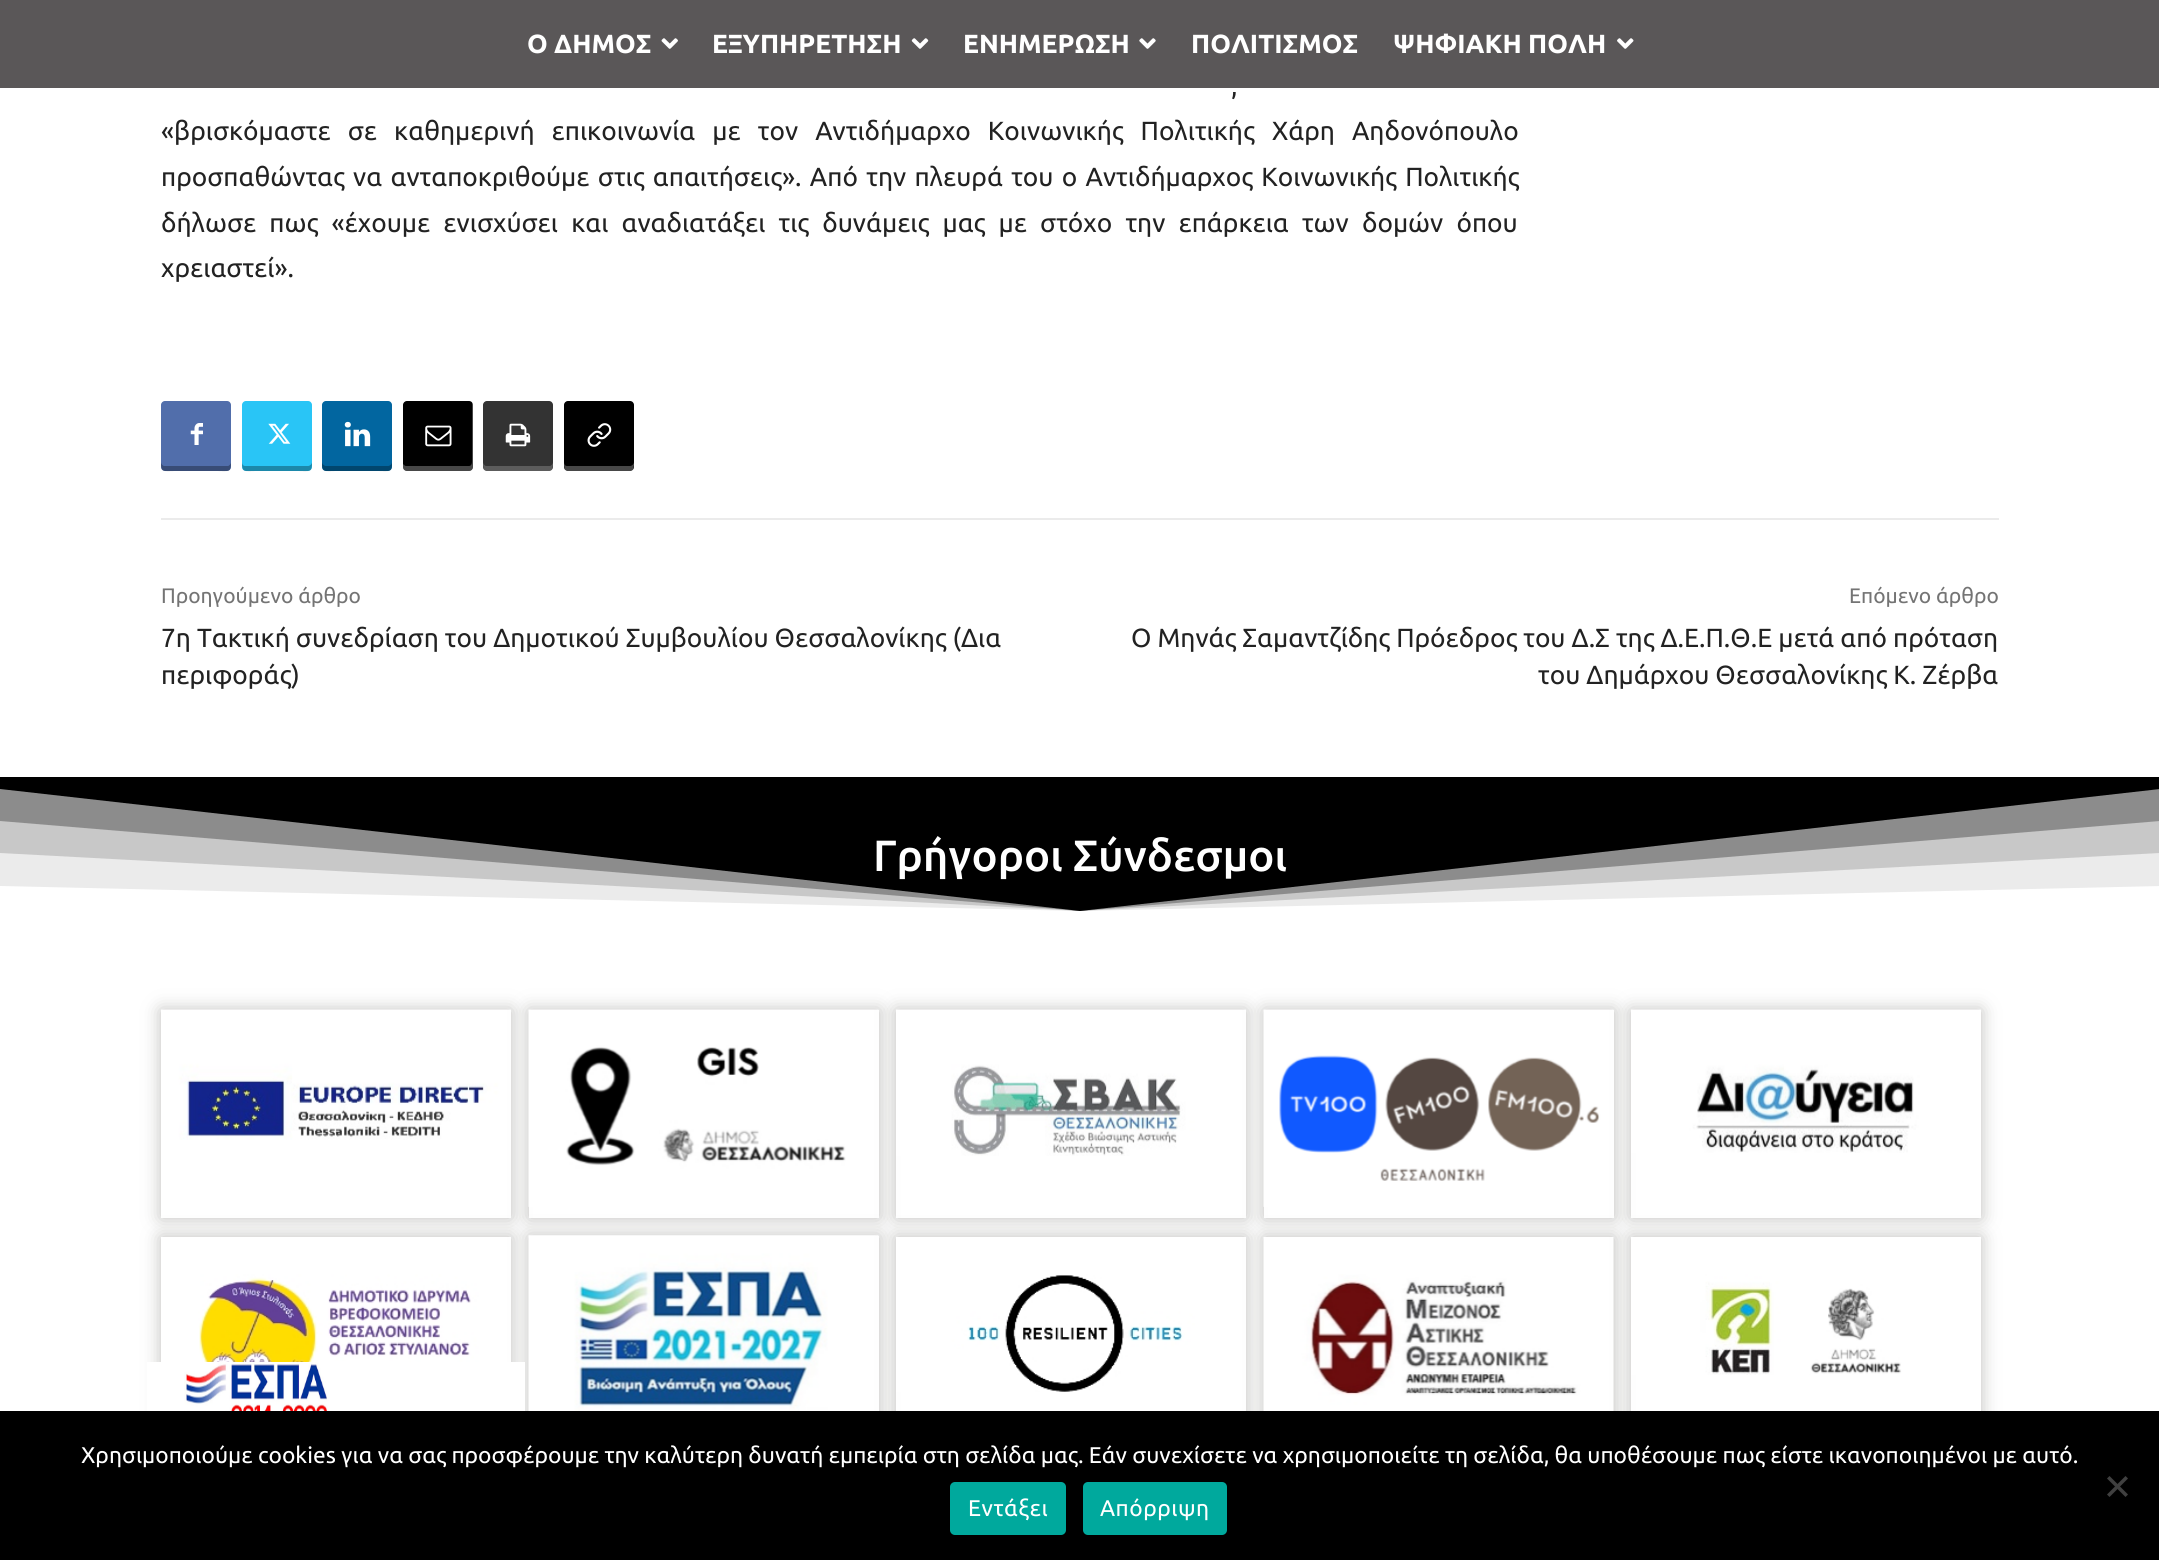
import math
import cairo

surface = cairo.ImageSurface(cairo.FORMAT_RGB24, 2159, 1560)
c = cairo.Context(surface)
options = cairo.FontOptions()
options.set_hint_metrics(cairo.HINT_METRICS_OFF)
options.set_hint_style(cairo.HINT_STYLE_NONE)
c.set_font_options(options)
c.set_miter_limit(4)
def C(code):
 c.set_source_rgb(*(v / 255 for v in bytes.fromhex(code[-6:])))
def F(family, size, italic, bold):
 c.select_font_face(family, cairo.FONT_SLANT_ITALIC if italic else cairo.FONT_SLANT_NORMAL, cairo.FONT_WEIGHT_BOLD if bold else cairo.FONT_WEIGHT_NORMAL)
 c.set_font_size(size)
def T(x, y, s):
 c.move_to(x, y)
 c.show_text(s)
def L(x, y, s, letter, word):
 c.move_to(x, y)
 for ch in s:
  c.show_text(ch)
  c.rel_move_to(letter + word * (ch == ' '), 0)
def R(x, y, w, h):
 c.rectangle(x, y, w, h)
 c.fill()
def Q(x, y, w, h, r):
 c.new_sub_path()
 for i, (u, v) in enumerate([(x + w - r, y + h - r), (x + r, y + h - r), (x + r, y + r), (x + w - r, y + r)]):
  c.arc(u, v, r, i * math.pi / 2, (i + 1) * math.pi / 2)
 c.close_path()
def S(x, y, w, h, r, blur, alpha):
 c.push_group_with_content(cairo.CONTENT_ALPHA)
 c.set_operator(cairo.OPERATOR_SOURCE)
 for i in range(15, -16, -2):
  e = blur * i / 6
  if min(w, h) + 2 * e > 0:
   c.set_source_rgba(0, 0, 0, alpha * math.erfc((i - 1) / 8.5) / 2)
   Q(x - e, y - e, w + 2 * e, h + 2 * e, max(0, min(r + e + blur * .6, min(w, h) / 2 + e)))
   c.fill()
 c.mask(c.pop_group())
def I(path, x, y, w, h):
 c.save()
 c.set_source_surface(cairo.ImageSurface.create_from_png(path), x, y)
 c.rectangle(x, y, w, h)
 c.fill()
 c.restore()
C('ffffff')
c.paint()
C('5a5758')
R(0,0,2159,88)
F('Ubuntu',26.25,0,1)
C('ffffff')
T(527,53,'Ο ΔΗΜΟΣ')
I('1.png',661,38,17,11)
T(712,53,'ΕΞΥΠΗΡΕΤΗΣΗ')
I('2.png',911,38,18,11)
T(963,53,'ΕΝΗΜΕΡΩΣΗ')
I('3.png',1139,38,17,11)
T(1191,53,'ΠΟΛΙΤΙΣΜΟΣ')
T(1393,53,'ΨΗΦΙΑΚΗ ΠΟΛΗ')
I('4.png',1617,38,17,11)
F('Ubuntu',26.25,0,0)
C('222222')
L(1231,95,',',0,8)
L(161,140,'«βρισκόμαστε σε καθημερινή επικοινωνία με τον Αντιδήμαρχο Κοινωνικής Πολιτικής Χάρη Αηδονόπουλο',0,11)
L(161,186,'προσπαθώντας να ανταποκριθούμε στις απαιτήσεις». Από την πλευρά του ο Αντιδήμαρχος Κοινωνικής Πολιτικής',0,2.25)
L(161,232,'δήλωσε πως «έχουμε ενισχύσει και αναδιατάξει τις δυνάμεις μας με στόχο την επάρκεια των δομών όπου',0,7.1)
T(161,277,'χρειαστεί».')
C('516eab')
Q(161,401,70,70,4)
c.fill()
c.set_source_rgba(0,0,0,0.31)
c.new_path()
c.move_to(161,462)
c.curve_to(161,473,163,471,175,471)
c.line_to(217,471)
c.curve_to(229,471,231,473,231,462)
c.curve_to(231,464,229,466,228,466)
c.line_to(164,466)
c.curve_to(163,466,161,464,161,462)
c.close_path()
c.fill()
I('5.png',190,423,13,22)
C('29c5f6')
Q(242,401,70,70,4)
c.fill()
c.set_source_rgba(0,0,0,0.31)
c.new_path()
c.move_to(242,462)
c.curve_to(242,473,244,471,256,471)
c.line_to(298,471)
c.curve_to(310,471,312,473,312,462)
c.curve_to(312,464,310,466,308,466)
c.line_to(245,466)
c.curve_to(243,466,242,464,242,462)
c.close_path()
c.fill()
I('6.png',268,423,23,21)
C('0266a0')
Q(322,401,70,70,4)
c.fill()
c.set_source_rgba(0,0,0,0.31)
c.new_path()
c.move_to(322,462)
c.curve_to(322,473,324,471,336,471)
c.line_to(378,471)
c.curve_to(390,471,392,473,392,462)
c.curve_to(392,464,390,466,388,466)
c.line_to(326,466)
c.curve_to(324,466,322,464,322,462)
c.close_path()
c.fill()
I('7.png',344,421,27,26)
C('000000')
Q(403,401,70,70,4)
c.fill()
c.set_source_rgba(1,1,1,0.28)
c.new_path()
c.move_to(403,464)
c.line_to(403,467)
c.curve_to(403,469,405,471,407,471)
c.line_to(469,471)
c.curve_to(471,471,473,469,473,467)
c.line_to(473,405)
c.curve_to(473,404,473,403,472,402)
c.line_to(472,462)
c.curve_to(472,464,471,466,469,466)
c.line_to(406,466)
c.curve_to(405,466,404,465,403,464)
c.close_path()
c.fill()
I('8.png',425,425,27,22)
C('333333')
Q(483,401,70,70,4)
c.fill()
c.set_source_rgba(1,1,1,0.2)
c.new_path()
c.move_to(483,462)
c.curve_to(483,473,485,471,497,471)
c.line_to(539,471)
c.curve_to(551,471,553,473,553,462)
c.curve_to(553,464,551,466,550,466)
c.line_to(486,466)
c.curve_to(485,466,483,464,483,462)
c.close_path()
c.fill()
I('9.png',505,423,26,24)
C('000000')
Q(564,401,70,70,4)
c.fill()
c.set_source_rgba(1,1,1,0.28)
c.new_path()
c.move_to(564,462)
c.curve_to(564,473,566,471,578,471)
c.line_to(620,471)
c.curve_to(632,471,634,473,634,462)
c.curve_to(634,464,632,466,630,466)
c.line_to(567,466)
c.curve_to(565,466,564,464,564,462)
c.close_path()
c.fill()
I('10.png',587,423,25,24)
C('ebebeb')
R(161,518,1838,2)
F('Ubuntu',21,0,0)
C('747474')
T(161,603,'Προηγούμενο άρθρο')
F('Ubuntu',26.25,0,0)
C('222222')
T(161,647,'7η Τακτική συνεδρίαση του Δημοτικού Συμβουλίου Θεσσαλονίκης (Δια')
T(161,684,'περιφοράς)')
F('Ubuntu',21,0,0)
C('747474')
T(1849,603,'Επόμενο άρθρο')
F('Ubuntu',26.25,0,0)
C('222222')
T(1131,647,'Ο Μηνάς Σαμαντζίδης Πρόεδρος του Δ.Σ της Δ.Ε.Π.Θ.Ε μετά από πρόταση')
T(1538,684,'του Δημάρχου Θεσσαλονίκης Κ. Ζέρβα')
c.save()
c.rectangle(0,777,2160,431)
c.clip()
C('000000')
c.new_path()
c.move_to(0,452)
c.line_to(0,789)
c.line_to(1080,911)
c.line_to(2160,789)
c.line_to(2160,452)
c.close_path()
c.fill()
c.set_source_rgba(0,0,0,0.3)
c.new_path()
c.move_to(0,452)
c.line_to(0,821)
c.line_to(1080,911)
c.line_to(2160,821)
c.line_to(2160,452)
c.close_path()
c.fill()
c.set_source_rgba(0,0,0,0.15)
c.new_path()
c.move_to(0,452)
c.line_to(0,853)
c.line_to(1080,911)
c.line_to(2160,853)
c.line_to(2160,452)
c.close_path()
c.fill()
c.set_source_rgba(0,0,0,0.08)
c.new_path()
c.move_to(0,452)
c.line_to(0,886)
c.line_to(1080,911)
c.line_to(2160,886)
c.line_to(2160,452)
c.close_path()
c.fill()
c.restore()
F('Ubuntu Medium',43.75,0,0)
C('ffffff')
T(873,871,'Γρήγοροι Σύνδεσμοι')
c.save()
c.set_fill_rule(cairo.FILL_RULE_EVEN_ODD)
c.new_path()
c.move_to(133,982)
c.line_to(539,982)
c.line_to(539,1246)
c.line_to(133,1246)
c.close_path()
c.move_to(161,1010)
c.line_to(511,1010)
c.line_to(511,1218)
c.line_to(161,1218)
c.close_path()
c.clip()
C('bfbebc')
S(161,1010,350,208,0,9,1)
c.restore()
I('11.png',161,1009,350,131)
c.save()
c.set_fill_rule(cairo.FILL_RULE_EVEN_ODD)
c.new_path()
c.move_to(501,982)
c.line_to(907,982)
c.line_to(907,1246)
c.line_to(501,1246)
c.close_path()
c.move_to(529,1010)
c.line_to(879,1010)
c.line_to(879,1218)
c.line_to(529,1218)
c.close_path()
c.clip()
C('bfbebc')
S(529,1010,350,208,0,9,1)
c.restore()
I('12.png',528,1009,351,198)
c.save()
c.set_fill_rule(cairo.FILL_RULE_EVEN_ODD)
c.new_path()
c.move_to(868,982)
c.line_to(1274,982)
c.line_to(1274,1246)
c.line_to(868,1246)
c.close_path()
c.move_to(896,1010)
c.line_to(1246,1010)
c.line_to(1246,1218)
c.line_to(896,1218)
c.close_path()
c.clip()
C('bfbebc')
S(896,1010,350,208,0,9,1)
c.restore()
I('13.png',896,1009,350,147)
c.save()
c.set_fill_rule(cairo.FILL_RULE_EVEN_ODD)
c.new_path()
c.move_to(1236,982)
c.line_to(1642,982)
c.line_to(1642,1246)
c.line_to(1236,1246)
c.close_path()
c.move_to(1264,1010)
c.line_to(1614,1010)
c.line_to(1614,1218)
c.line_to(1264,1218)
c.close_path()
c.clip()
C('bfbebc')
S(1264,1010,350,208,0,9,1)
c.restore()
I('14.png',1263,1009,351,198)
c.save()
c.set_fill_rule(cairo.FILL_RULE_EVEN_ODD)
c.new_path()
c.move_to(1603,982)
c.line_to(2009,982)
c.line_to(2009,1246)
c.line_to(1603,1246)
c.close_path()
c.move_to(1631,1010)
c.line_to(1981,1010)
c.line_to(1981,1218)
c.line_to(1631,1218)
c.close_path()
c.clip()
C('bfbebc')
S(1631,1010,350,208,0,9,1)
c.restore()
I('15.png',1631,1009,350,144)
C('bfbebc')
S(161,1237,350,209,0,9,1)
I('16.png',161,1237,350,125)
S(529,1236,350,208,0,9,1)
C('ffffff')
R(878,1236,1,175)
I('17.png',528,1235,351,176)
c.save()
c.set_fill_rule(cairo.FILL_RULE_EVEN_ODD)
c.new_path()
c.move_to(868,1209)
c.line_to(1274,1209)
c.line_to(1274,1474)
c.line_to(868,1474)
c.close_path()
c.move_to(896,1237)
c.line_to(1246,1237)
c.line_to(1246,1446)
c.line_to(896,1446)
c.close_path()
c.clip()
C('bfbebc')
S(896,1237,350,209,0,9,1)
c.restore()
I('18.png',896,1237,350,155)
C('bfbebc')
S(1264,1237,350,209,0,9,1)
I('19.png',1263,1237,351,174)
c.save()
c.set_fill_rule(cairo.FILL_RULE_EVEN_ODD)
c.new_path()
c.move_to(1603,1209)
c.line_to(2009,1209)
c.line_to(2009,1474)
c.line_to(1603,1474)
c.close_path()
c.move_to(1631,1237)
c.line_to(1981,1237)
c.line_to(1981,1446)
c.line_to(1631,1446)
c.close_path()
c.clip()
S(1631,1237,350,209,0,9,1)
c.restore()
I('20.png',1631,1237,350,138)
I('21.png',147,1362,378,49)
C('000000')
R(0,1411,2159,149)
F('Ubuntu',22.75,0,0)
C('ffffff')
T(81,1463,'Χρησιμοποιούμε cookies για να σας προσφέρουμε την καλύτερη δυνατή εμπειρία στη σελίδα μας. Εάν συνεχίσετε να χρησιμοποιείτε τη σελίδα, θα υποθέσουμε πως είστε ικανοποιημένοι με αυτό.')
C('404040')
c.new_path()
c.move_to(2125.5,1476)
c.line_to(2128,1478.5)
c.line_to(2109.5,1497)
c.line_to(2107,1494.5)
c.close_path()
c.fill()
c.new_path()
c.move_to(2107,1478.5)
c.line_to(2109.5,1476)
c.line_to(2128,1494.5)
c.line_to(2125.5,1497)
c.close_path()
c.fill()
C('00a99d')
Q(950,1482,116,53,5)
c.fill()
C('ffffff')
L(968,1516,'Εντάξει',.5,0)
C('00a99d')
Q(1083,1482,144,53,5)
c.fill()
C('ffffff')
L(1100,1516,'Απόρριψη',.5,0)
surface.write_to_png('o.png')
